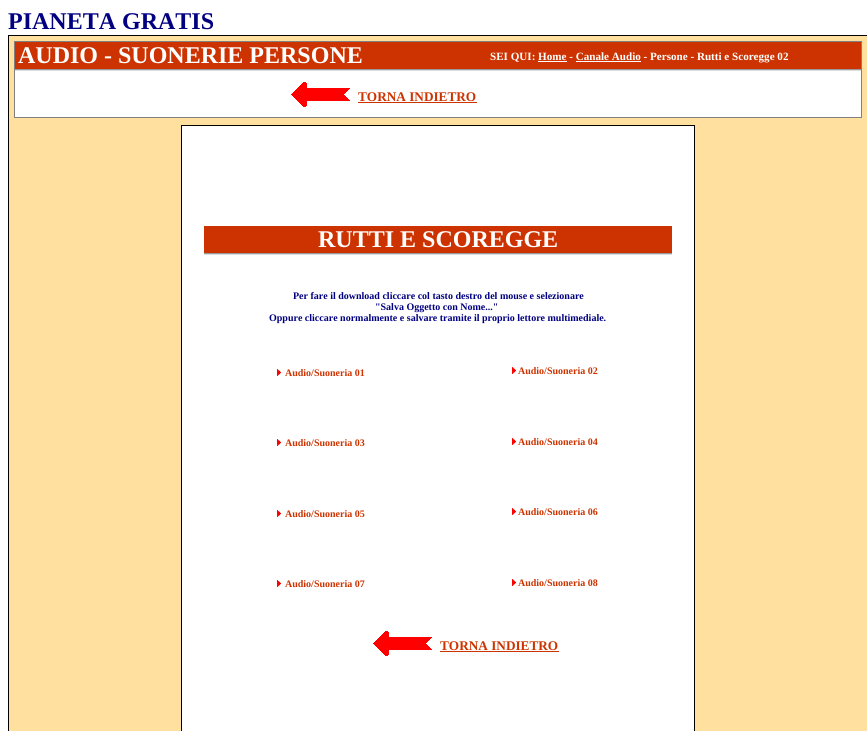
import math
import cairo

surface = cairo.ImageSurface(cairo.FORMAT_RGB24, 867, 731)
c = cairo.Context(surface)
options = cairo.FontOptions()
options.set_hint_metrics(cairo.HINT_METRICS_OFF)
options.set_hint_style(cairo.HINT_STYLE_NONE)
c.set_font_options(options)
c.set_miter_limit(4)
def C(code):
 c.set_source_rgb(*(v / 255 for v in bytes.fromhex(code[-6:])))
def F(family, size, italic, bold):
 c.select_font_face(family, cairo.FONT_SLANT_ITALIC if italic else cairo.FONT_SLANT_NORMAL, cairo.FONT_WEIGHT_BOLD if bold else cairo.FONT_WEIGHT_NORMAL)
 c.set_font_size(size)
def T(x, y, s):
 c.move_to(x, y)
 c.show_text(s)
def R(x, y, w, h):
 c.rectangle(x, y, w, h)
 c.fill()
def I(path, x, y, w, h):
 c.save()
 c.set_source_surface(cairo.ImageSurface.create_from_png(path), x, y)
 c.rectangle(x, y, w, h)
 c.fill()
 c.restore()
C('ffffff')
c.paint()
F('Liberation Serif',24,0,1)
C('000080')
T(8,29,'PIANETA GRATIS')
C('ffe09f')
R(9,36,858,695)
C('000000')
R(8,35,859,1)
R(8,35,1,696)
C('ffffff')
R(15,71,846,46)
C('808080')
R(14,41,848,1)
R(861,41,1,77)
R(14,117,848,1)
R(14,41,1,77)
C('cc3300')
R(15,42,846,27)
C('ffffff')
T(18,63,'AUDIO - SUONERIE PERSONE')
F('Liberation Serif',11.1,0,1)
T(490,60,'SEI QUI: Home - Canale Audio - Persone - Rutti e Scoregge 02')
R(538,61,29,1)
R(576,61,65,1)
C('999999')
R(15,69,846,1)
C('dddddd')
R(15,70,846,1)
I('1.png',291,82,59,25)
F('Liberation Serif',13.25,0,1)
C('cc3300')
T(358,101,'TORNA INDIETRO')
R(358,102,119,1)
C('ffffff')
R(182,126,512,605)
C('000000')
R(181,125,514,1)
R(694,125,1,606)
R(181,125,1,606)
C('cc3300')
R(204,226,468,27)
F('Liberation Serif',24,0,1)
C('ffffff')
T(318,247,'RUTTI E SCOREGGE')
C('999999')
R(204,253,468,1)
C('dddddd')
R(204,254,468,1)
F('Liberation Serif',10,0,1)
C('000080')
T(293,299,'Per fare il download cliccare col tasto destro del mouse e selezionare')
T(375,310,'"Salva Oggetto con Nome..."')
T(269,321,'Oppure cliccare normalmente e salvare tramite il proprio lettore multimediale.')
I('2.png',277,369,4,7)
C('cc3300')
T(285,376,'Audio/Suoneria 01')
I('2.png',512,367,4,7)
T(518,374,'Audio/Suoneria 02')
I('2.png',277,439,4,7)
T(285,446,'Audio/Suoneria 03')
I('2.png',512,438,4,7)
T(518,445,'Audio/Suoneria 04')
I('2.png',277,510,4,7)
T(285,517,'Audio/Suoneria 05')
I('2.png',512,508,4,7)
T(518,515,'Audio/Suoneria 06')
I('2.png',277,580,4,7)
T(285,587,'Audio/Suoneria 07')
I('2.png',512,579,4,7)
T(518,586,'Audio/Suoneria 08')
I('1.png',373,631,59,25)
F('Liberation Serif',13.25,0,1)
T(440,650,'TORNA INDIETRO')
R(440,651,119,1)
surface.write_to_png('o.png')
